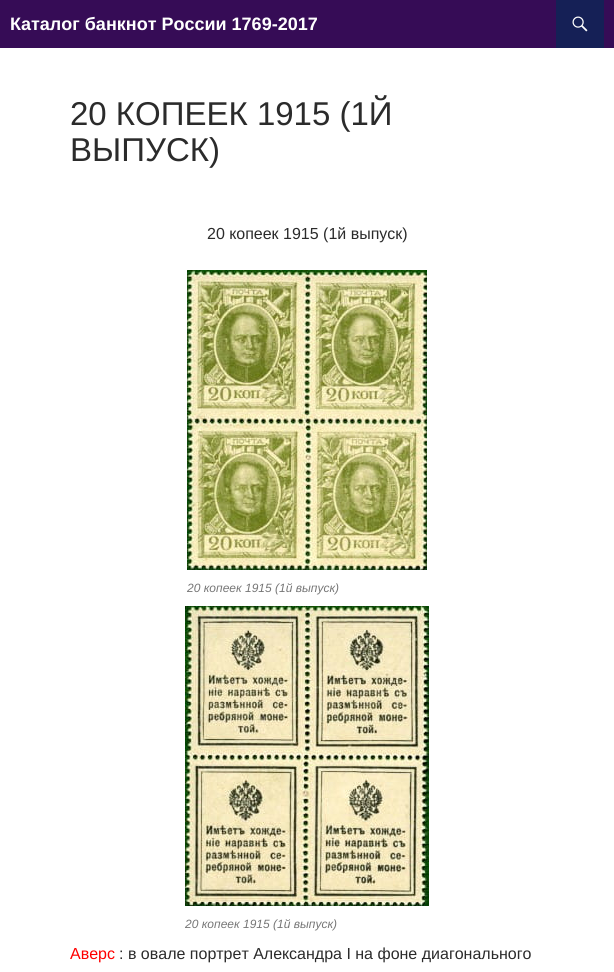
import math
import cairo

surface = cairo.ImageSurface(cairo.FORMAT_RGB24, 614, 972)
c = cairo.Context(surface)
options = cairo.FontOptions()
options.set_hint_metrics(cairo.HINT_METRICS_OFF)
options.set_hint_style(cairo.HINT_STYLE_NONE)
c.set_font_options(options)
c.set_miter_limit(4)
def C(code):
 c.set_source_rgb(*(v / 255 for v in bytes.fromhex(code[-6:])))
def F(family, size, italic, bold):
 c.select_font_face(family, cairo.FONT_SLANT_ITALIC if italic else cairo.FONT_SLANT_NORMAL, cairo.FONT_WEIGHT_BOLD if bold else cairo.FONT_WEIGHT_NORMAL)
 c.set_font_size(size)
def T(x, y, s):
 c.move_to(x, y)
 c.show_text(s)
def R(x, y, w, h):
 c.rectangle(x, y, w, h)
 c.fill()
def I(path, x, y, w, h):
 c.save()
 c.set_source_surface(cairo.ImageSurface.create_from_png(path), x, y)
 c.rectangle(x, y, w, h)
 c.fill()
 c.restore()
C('ffffff')
c.paint()
C('360c56')
R(0,0,614,48)
F('Liberation Sans',18,0,1)
C('ffffff')
T(10,30,'Каталог банкнот России 1769-2017')
C('152056')
R(556,0,48,48)
I('1.png',572,16,16,16)
F('Liberation Sans',33,0,0)
C('2b2b2b')
T(70,125,'20 КОПЕЕК 1915 (1Й')
T(70,161,'ВЫПУСК)')
F('Liberation Sans',16,0,0)
T(207,239,'20 копеек 1915 (1й выпуск)')
I('2.png',187,270,240,300)
F('Liberation Sans',12,1,0)
C('767676')
T(187,592,'20 копеек 1915 (1й выпуск)')
I('3.png',185,606,244,300)
T(185,928,'20 копеек 1915 (1й выпуск)')
F('Liberation Sans',16,0,0)
C('ff0000')
T(70,959,'Аверс')
C('2b2b2b')
T(119,959,': в овале портрет Александра I на фоне диагонального')
surface.write_to_png('o.png')
